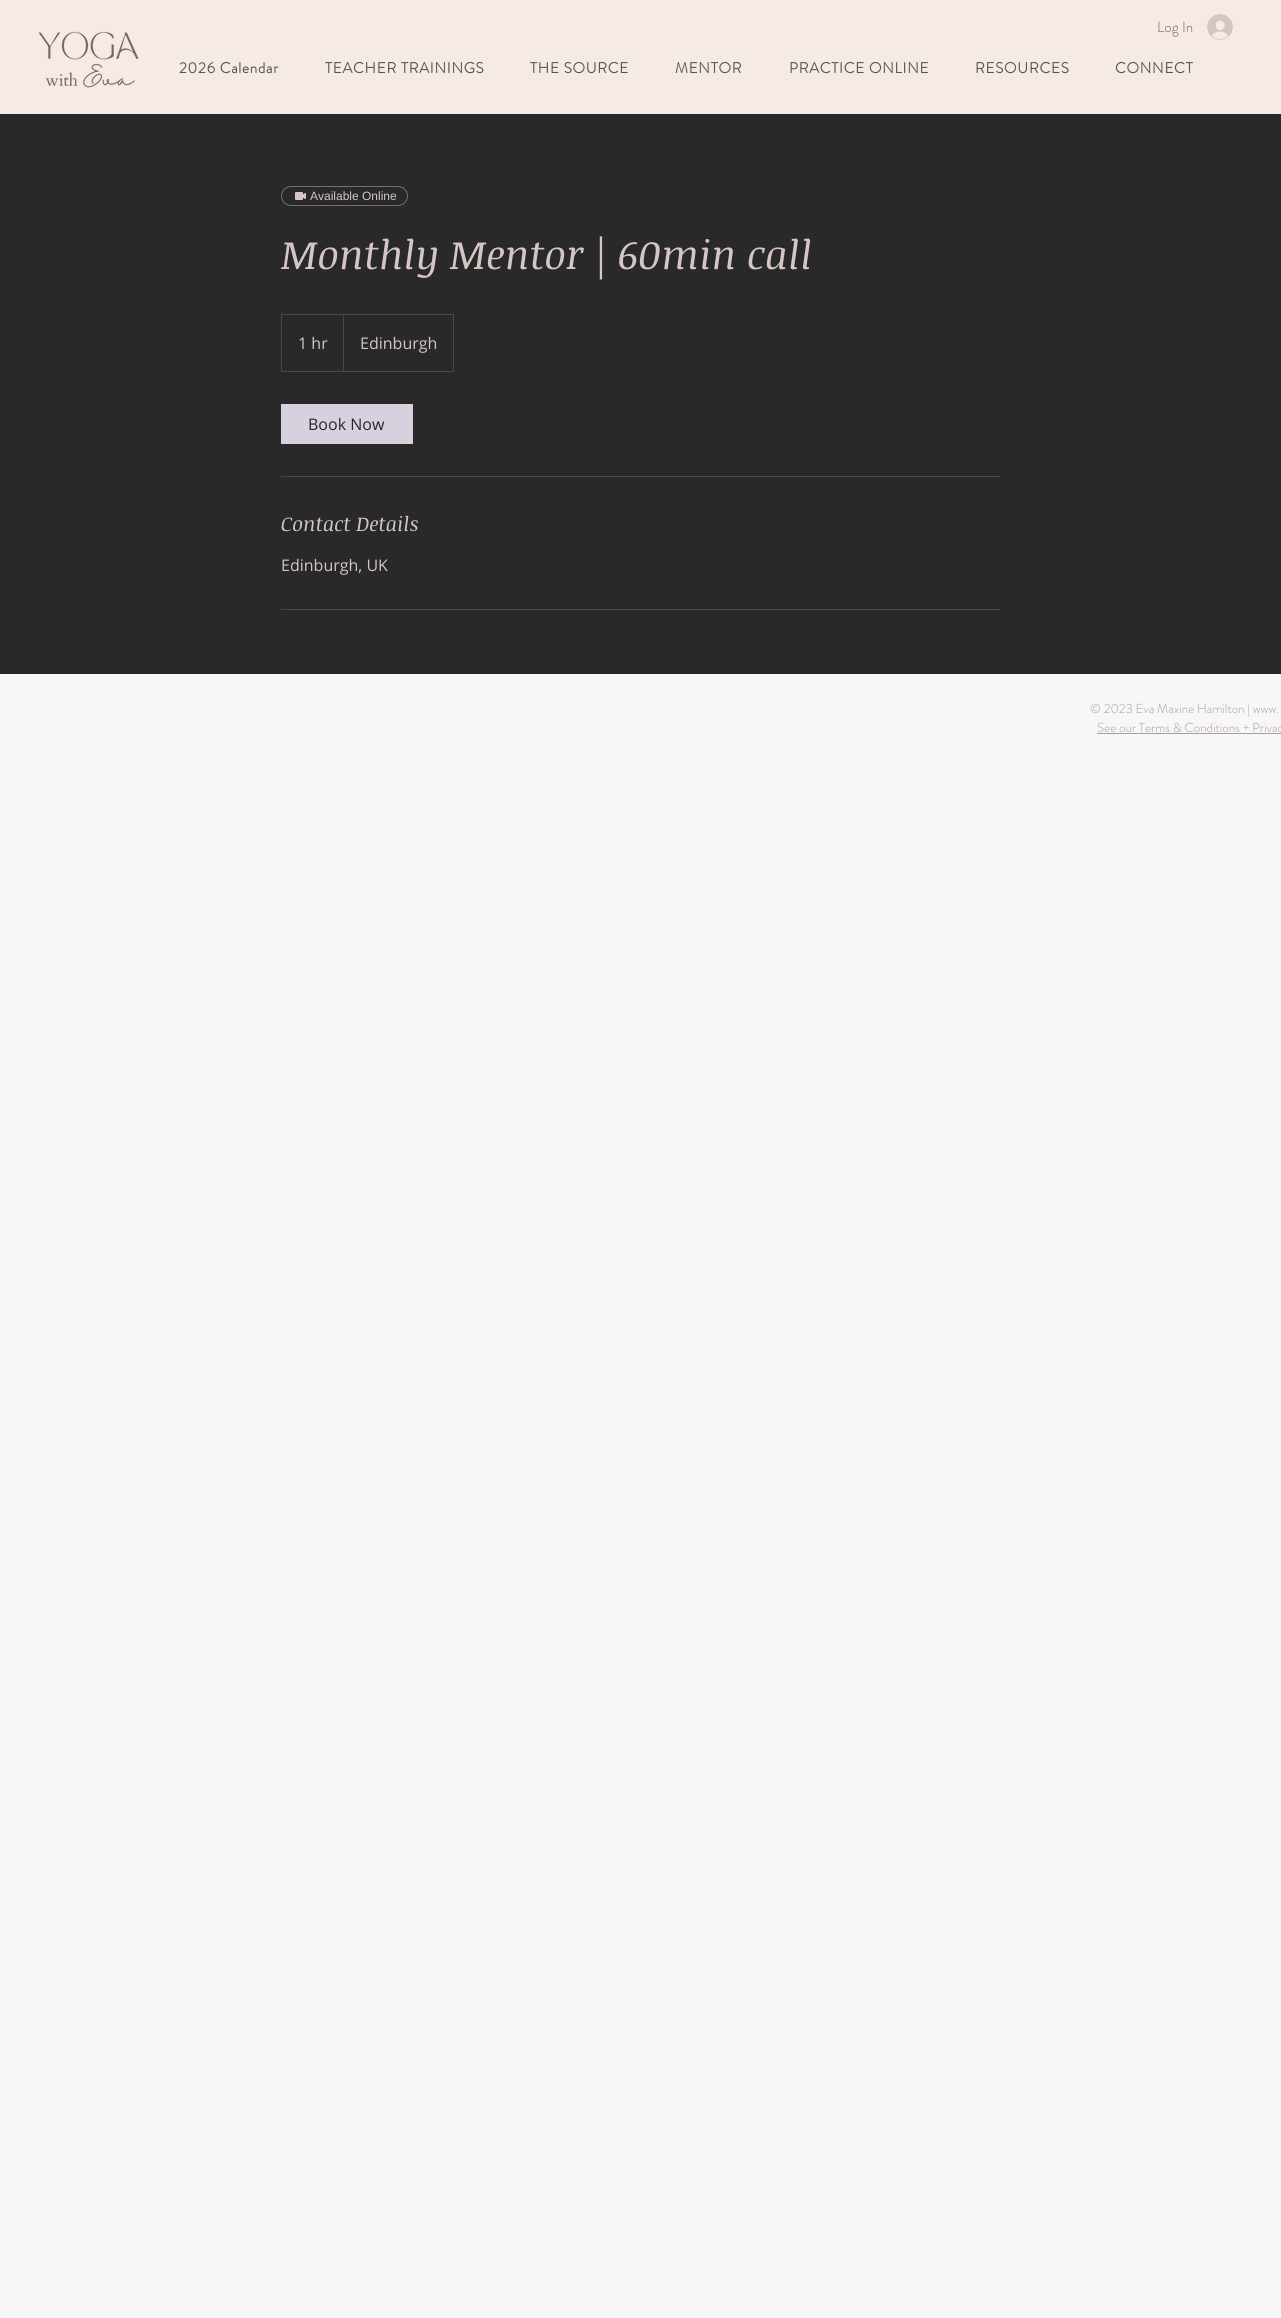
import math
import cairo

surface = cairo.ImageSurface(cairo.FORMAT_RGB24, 1281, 2318)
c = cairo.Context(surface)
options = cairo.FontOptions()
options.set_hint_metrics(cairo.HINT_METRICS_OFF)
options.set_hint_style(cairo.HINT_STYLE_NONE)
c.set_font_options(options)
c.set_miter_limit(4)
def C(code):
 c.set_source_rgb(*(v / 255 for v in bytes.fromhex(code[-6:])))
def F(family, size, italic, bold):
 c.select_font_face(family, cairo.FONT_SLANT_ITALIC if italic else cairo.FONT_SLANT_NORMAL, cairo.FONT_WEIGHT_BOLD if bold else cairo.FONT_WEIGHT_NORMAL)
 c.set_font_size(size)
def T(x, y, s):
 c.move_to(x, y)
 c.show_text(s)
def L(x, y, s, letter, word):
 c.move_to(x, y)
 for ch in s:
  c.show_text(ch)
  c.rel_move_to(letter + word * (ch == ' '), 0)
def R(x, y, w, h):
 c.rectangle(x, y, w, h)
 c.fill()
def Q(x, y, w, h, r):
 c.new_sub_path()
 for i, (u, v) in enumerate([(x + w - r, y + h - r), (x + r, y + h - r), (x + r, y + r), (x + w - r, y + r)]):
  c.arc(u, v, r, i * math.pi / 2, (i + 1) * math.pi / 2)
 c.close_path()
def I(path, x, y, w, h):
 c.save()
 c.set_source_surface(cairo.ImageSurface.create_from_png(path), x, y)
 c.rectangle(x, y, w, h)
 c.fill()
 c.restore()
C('f7f6f8')
c.paint()
C('f6ebe4')
R(0,0,1281,114)
F('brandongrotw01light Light',15,0,0)
C('7a606c')
T(1157,32,'Log In')
I('1.png',1207,14,26,26)
I('2.png',38,31,101,57)
F('brandongrotw01light',15,0,1)
C('545454')
L(179,73,'2026 Calendar',.75,0)
L(325,73,'TEACHER TRAININGS',.75,0)
L(530,73,'THE SOURCE',.75,0)
L(675,73,'MENTOR',.75,0)
L(789,73,'PRACTICE ONLINE',.75,0)
L(975,73,'RESOURCES',.75,0)
L(1115,73,'CONNECT',.75,0)
C('292929')
R(0,114,1281,560)
Q(281.5,186.5,126,19,9.5)
C('76706f')
c.set_line_width(1)
c.stroke()
I('3.png',295,192,11,8)
F('Liberation Sans',12,0,0)
C('d5c6c5')
T(310,200,'Available Online')
F('Noticia Text',40,1,0)
T(281,269,'Monthly Mentor | 60min call')
c.rectangle(281.5,314.5,172,57)
C('4b4848')
c.stroke()
F('Open Sans',16,0,0)
C('d5c6c5')
T(298,349,'1 hr')
C('4b4848')
c.new_path()
c.move_to(343,371)
c.line_to(343,314)
c.line_to(344,315)
c.line_to(344,371)
c.close_path()
c.fill()
C('d5c6c5')
T(360,349,'Edinburgh')
C('d7d1de')
R(281,404,132,40)
C('292929')
T(308,430,'Book Now')
C('4b4848')
R(281,476,720,1)
F('Noticia Text',20,1,0)
C('d5c6c5')
T(281,531,'Contact Details')
F('Open Sans',16,0,0)
T(281,571,'Edinburgh, UK')
C('4b4848')
R(281,609,720,1)
F('brandongrotw01light Light',13,0,0)
C('ac9c9b')
T(1090,713,'© 2023 Eva Maxine Hamilton | www.')
T(1097,732,'See our Terms & Conditions + Privac')
R(1097,733,184,1)
surface.write_to_png('o.png')
